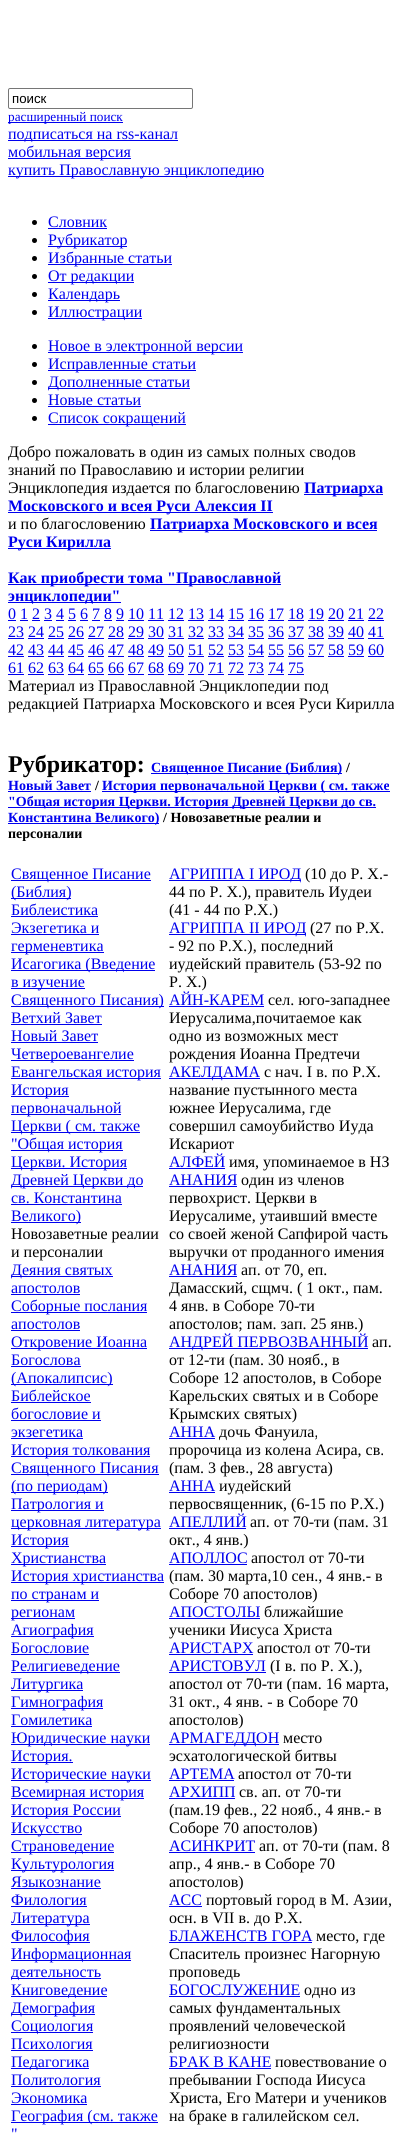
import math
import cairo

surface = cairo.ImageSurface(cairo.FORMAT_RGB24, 403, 2134)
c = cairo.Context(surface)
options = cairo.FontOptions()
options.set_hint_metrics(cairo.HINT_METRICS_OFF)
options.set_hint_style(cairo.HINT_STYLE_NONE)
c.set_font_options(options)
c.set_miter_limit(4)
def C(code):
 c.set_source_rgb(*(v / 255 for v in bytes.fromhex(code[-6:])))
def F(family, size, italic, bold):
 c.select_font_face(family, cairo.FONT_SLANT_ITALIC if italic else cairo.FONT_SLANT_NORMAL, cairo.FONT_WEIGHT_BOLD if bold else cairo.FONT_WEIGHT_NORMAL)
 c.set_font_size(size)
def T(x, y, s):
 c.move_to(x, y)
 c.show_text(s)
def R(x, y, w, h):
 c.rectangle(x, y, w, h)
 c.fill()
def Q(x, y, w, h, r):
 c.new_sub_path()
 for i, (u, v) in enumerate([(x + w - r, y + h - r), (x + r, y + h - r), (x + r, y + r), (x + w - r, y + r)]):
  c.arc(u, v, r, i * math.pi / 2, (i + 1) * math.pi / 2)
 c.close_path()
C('ffffff')
c.paint()
Q(8.5,88.5,184,20,1.5)
C('767676')
c.set_line_width(1)
c.stroke()
F('Liberation Sans',13.25,0,0)
C('000000')
T(12,103,'поиск')
C('0000ee')
R(8,122,115,1)
F('Liberation Serif',13.25,0,0)
T(8,121,'расширенный поиск')
R(8,140,170,1)
F('Liberation Serif',16,0,0)
T(8,139,'подписаться на rss-канал')
R(8,158,123,1)
T(8,157,'мобильная версия')
R(8,176,256,1)
T(8,175,'купить Православную энциклопедию')
C('000000')
c.new_path()
c.arc(34.5,222.5,2.5,0,2 * math.pi)
c.fill()
C('0000ee')
T(48,227,'Словник')
R(48,228,59,1)
C('000000')
c.new_path()
c.arc(34.5,240.5,2.5,0,2 * math.pi)
c.fill()
C('0000ee')
R(48,246,79,1)
T(48,245,'Рубрикатор')
C('000000')
c.new_path()
c.arc(34.5,258.5,2.5,0,2 * math.pi)
c.fill()
C('0000ee')
R(48,264,124,1)
T(48,263,'Избранные статьи')
C('000000')
c.new_path()
c.arc(34.5,276.5,2.5,0,2 * math.pi)
c.fill()
C('0000ee')
R(48,282,86,1)
T(48,281,'От редакции')
C('000000')
c.new_path()
c.arc(34.5,294.5,2.5,0,2 * math.pi)
c.fill()
C('0000ee')
R(48,300,72,1)
T(48,299,'Календарь')
C('000000')
c.new_path()
c.arc(34.5,312.5,2.5,0,2 * math.pi)
c.fill()
C('0000ee')
R(48,318,94,1)
T(48,317,'Иллюстрации')
C('000000')
c.new_path()
c.arc(34.5,346.5,2.5,0,2 * math.pi)
c.fill()
C('0000ee')
R(48,352,195,1)
T(48,351,'Новое в электронной версии')
C('000000')
c.new_path()
c.arc(34.5,364.5,2.5,0,2 * math.pi)
c.fill()
C('0000ee')
R(48,370,148,1)
T(48,369,'Исправленные статьи')
C('000000')
c.new_path()
c.arc(34.5,382.5,2.5,0,2 * math.pi)
c.fill()
C('0000ee')
R(48,388,142,1)
T(48,387,'Дополненные статьи')
C('000000')
c.new_path()
c.arc(34.5,400.5,2.5,0,2 * math.pi)
c.fill()
C('0000ee')
T(48,405,'Новые статьи')
R(48,406,93,1)
C('000000')
c.new_path()
c.arc(34.5,418.5,2.5,0,2 * math.pi)
c.fill()
C('0000ee')
R(48,424,138,1)
T(48,423,'Список сокращений')
C('000000')
T(8,457,'Добро пожаловать в один из самых полных сводов')
T(8,475,'знаний по Православию и истории религии')
T(8,493,'Энциклопедия издается по благословению')
C('0000ee')
R(304,494,79,1)
F('Liberation Serif',16,0,1)
T(304,493,'Патриарха')
R(8,512,265,1)
T(8,511,'Московского и всея Руси Алексия II')
F('Liberation Serif',16,0,0)
C('000000')
T(8,529,'и по благословению')
C('0000ee')
R(150,530,227,1)
F('Liberation Serif',16,0,1)
T(150,529,'Патриарха Московского и всея')
R(8,548,103,1)
T(8,547,'Руси Кирилла')
R(8,584,273,1)
T(8,583,'Как приобрести тома "Православной')
R(8,602,113,1)
T(8,601,'энциклопедии"')
F('Liberation Serif',16,0,0)
T(8,619,'0 1 2 3 4 5 6 7 8 9 10 11 12 13 14 15 16 17 18 19 20 21 22')
R(8,620,8,1)
R(20,620,8,1)
R(32,620,8,1)
R(44,620,8,1)
R(56,620,8,1)
R(68,620,8,1)
R(80,620,8,1)
R(92,620,8,1)
R(104,620,8,1)
R(116,620,8,1)
R(128,620,16,1)
R(148,620,16,1)
R(168,620,16,1)
R(188,620,16,1)
R(208,620,16,1)
R(228,620,16,1)
R(248,620,16,1)
R(268,620,16,1)
R(288,620,16,1)
R(308,620,16,1)
R(328,620,16,1)
R(348,620,16,1)
R(368,620,16,1)
T(8,637,'23 24 25 26 27 28 29 30 31 32 33 34 35 36 37 38 39 40 41')
R(8,638,16,1)
R(28,638,16,1)
R(48,638,16,1)
R(68,638,16,1)
R(88,638,16,1)
R(108,638,16,1)
R(128,638,16,1)
R(148,638,16,1)
R(168,638,16,1)
R(188,638,16,1)
R(208,638,16,1)
R(228,638,16,1)
R(248,638,16,1)
R(268,638,16,1)
R(288,638,16,1)
R(308,638,16,1)
R(328,638,16,1)
R(348,638,16,1)
R(368,638,16,1)
T(8,655,'42 43 44 45 46 47 48 49 50 51 52 53 54 55 56 57 58 59 60')
R(8,656,16,1)
R(28,656,16,1)
R(48,656,16,1)
R(68,656,16,1)
R(88,656,16,1)
R(108,656,16,1)
R(128,656,16,1)
R(148,656,16,1)
R(168,656,16,1)
R(188,656,16,1)
R(208,656,16,1)
R(228,656,16,1)
R(248,656,16,1)
R(268,656,16,1)
R(288,656,16,1)
R(308,656,16,1)
R(328,656,16,1)
R(348,656,16,1)
R(368,656,16,1)
T(8,673,'61 62 63 64 65 66 67 68 69 70 71 72 73 74 75')
R(8,674,16,1)
R(28,674,16,1)
R(48,674,16,1)
R(68,674,16,1)
R(88,674,16,1)
R(108,674,16,1)
R(128,674,16,1)
R(148,674,16,1)
R(168,674,16,1)
R(188,674,16,1)
R(208,674,16,1)
R(228,674,16,1)
R(248,674,16,1)
R(268,674,16,1)
R(288,674,16,1)
C('000000')
T(8,691,'Материал из Православной Энциклопедии под')
T(8,709,'редакцией Патриарха Московского и всея Руси Кирилла')
F('Liberation Serif',24,0,1)
T(8,772,'Рубрикатор:')
C('0000ee')
R(151,773,191,1)
F('Liberation Serif',14,0,1)
T(151,772,'Священное Писание (Библия)')
C('000000')
T(346,772,'/')
C('0000ee')
T(8,790,'Новый Завет')
R(8,791,83,1)
C('000000')
T(95,790,'/')
C('0000ee')
R(102,791,288,1)
T(102,790,'История первоначальной Церкви ( см. также')
R(8,807,368,1)
T(8,806,'"Общая история Церкви. История Древней Церкви до св.')
R(8,823,151,1)
T(8,822,'Константина Великого)')
C('000000')
T(163,822,'/ Новозаветные реалии и')
T(8,838,'персоналии')
C('0000ee')
R(11,880,140,1)
F('Liberation Serif',16,0,0)
T(11,879,'Священное Писание')
R(11,898,60,1)
T(11,897,'(Библия)')
T(11,915,'Библеистика')
R(11,916,87,1)
T(11,933,'Экзегетика и')
R(11,934,88,1)
R(11,952,93,1)
T(11,951,'герменевтика')
R(11,970,144,1)
T(11,969,'Исагогика (Введение')
R(11,988,74,1)
T(11,987,'в изучение')
R(11,1006,153,1)
T(11,1005,'Священного Писания)')
T(11,1023,'Ветхий Завет')
R(11,1024,91,1)
T(11,1041,'Новый Завет')
R(11,1042,87,1)
R(11,1060,123,1)
T(11,1059,'Четвероевангелие')
R(11,1078,150,1)
T(11,1077,'Евангельская история')
R(11,1096,58,1)
T(11,1095,'История')
R(11,1114,110,1)
T(11,1113,'первоначальной')
R(11,1132,129,1)
T(11,1131,'Церкви ( см. также')
R(11,1150,112,1)
T(11,1149,'"Общая история')
R(11,1168,116,1)
T(11,1167,'Церкви. История')
R(11,1186,132,1)
T(11,1185,'Древней Церкви до')
T(11,1203,'св. Константина')
R(11,1204,111,1)
R(11,1222,70,1)
T(11,1221,'Великого)')
C('000000')
T(11,1239,'Новозаветные реалии')
T(11,1257,'и персоналии')
C('0000ee')
R(11,1276,102,1)
T(11,1275,'Деяния святых')
T(11,1293,'апостолов')
R(11,1294,69,1)
R(11,1312,136,1)
T(11,1311,'Соборные послания')
T(11,1329,'апостолов')
R(11,1330,69,1)
R(11,1348,136,1)
T(11,1347,'Откровение Иоанна')
T(11,1365,'Богослова')
R(11,1366,70,1)
R(11,1384,102,1)
T(11,1383,'(Апокалипсис)')
T(11,1401,'Библейское')
R(11,1402,80,1)
T(11,1419,'богословие и')
R(11,1420,90,1)
T(11,1437,'экзегетика')
R(11,1438,72,1)
R(11,1456,139,1)
T(11,1455,'История толкования')
R(11,1474,148,1)
T(11,1473,'Священного Писания')
R(11,1492,97,1)
T(11,1491,'(по периодам)')
R(11,1510,93,1)
T(11,1509,'Патрология и')
R(11,1528,150,1)
T(11,1527,'церковная литература')
R(11,1546,58,1)
T(11,1545,'История')
R(11,1564,95,1)
T(11,1563,'Христианства')
R(11,1582,153,1)
T(11,1581,'История христианства')
R(11,1600,88,1)
T(11,1599,'по странам и')
R(11,1618,64,1)
T(11,1617,'регионам')
R(11,1636,83,1)
T(11,1635,'Агиография')
T(11,1653,'Богословие')
R(11,1654,78,1)
R(11,1672,109,1)
T(11,1671,'Религиеведение')
R(11,1690,72,1)
T(11,1689,'Литургика')
R(11,1708,92,1)
T(11,1707,'Гимнография')
T(11,1725,'Гомилетика')
R(11,1726,81,1)
R(11,1744,139,1)
T(11,1743,'Юридические науки')
R(11,1762,62,1)
T(11,1761,'История.')
R(11,1780,140,1)
T(11,1779,'Исторические науки')
R(11,1798,133,1)
T(11,1797,'Всемирная история')
R(11,1816,110,1)
T(11,1815,'История России')
R(11,1834,71,1)
T(11,1833,'Искусство')
R(11,1852,103,1)
T(11,1851,'Страноведение')
R(11,1870,103,1)
T(11,1869,'Культурология')
T(11,1887,'Языкознание')
R(11,1888,90,1)
T(11,1905,'Филология')
R(11,1906,76,1)
R(11,1924,79,1)
T(11,1923,'Литература')
R(11,1942,79,1)
T(11,1941,'Философия')
R(11,1960,120,1)
T(11,1959,'Информационная')
R(11,1978,90,1)
T(11,1977,'деятельность')
R(11,1996,96,1)
T(11,1995,'Книговедение')
R(11,2014,84,1)
T(11,2013,'Демография')
R(11,2032,82,1)
T(11,2031,'Социология')
T(11,2049,'Психология')
R(11,2050,82,1)
R(11,2068,78,1)
T(11,2067,'Педагогика')
T(11,2085,'Политология')
R(11,2086,90,1)
T(11,2103,'Экономика')
R(11,2104,76,1)
R(11,2122,147,1)
T(11,2121,'География (см. также')
T(11,2139,'"')
R(169,880,132,1)
T(169,879,'АГРИППА I ИРОД')
C('000000')
T(305,879,'(10 до Р. Х.-')
T(169,897,'44 по Р. Х.), правитель Иудеи')
T(169,915,'(41 - 44 по Р.Х.)')
C('0000ee')
R(169,934,137,1)
T(169,933,'АГРИППА II ИРОД')
C('000000')
T(310,933,'(27 по Р.Х.')
T(169,951,'- 92 по Р.Х.), последний')
T(169,969,'иудейский правитель (53-92 по')
T(169,987,'Р. Х.)')
C('0000ee')
T(169,1005,'АЙН-КАРЕМ')
R(169,1006,95,1)
C('000000')
T(268,1005,'сел. юго-западнее')
T(169,1023,'Иерусалима,почитаемое как')
T(169,1041,'одно из возможных мест')
T(169,1059,'рождения Иоанна Предтечи')
C('0000ee')
R(169,1078,91,1)
T(169,1077,'АКЕЛДАМА')
C('000000')
T(264,1077,'с нач. I в. по Р.Х.')
T(169,1095,'название пустынного места')
T(169,1113,'южнее Иерусалима, где')
T(169,1131,'совершил самоубийство Иуда')
T(169,1149,'Искариот')
C('0000ee')
T(169,1167,'АЛФЕЙ')
R(169,1168,56,1)
C('000000')
T(229,1167,'имя, упоминаемое в НЗ')
C('0000ee')
T(169,1185,'АНАНИЯ')
R(169,1186,68,1)
C('000000')
T(241,1185,'один из членов')
T(169,1203,'первохрист. Церкви в')
T(169,1221,'Иерусалиме, утаивший вместе')
T(169,1239,'со своей женой Сапфирой часть')
T(169,1257,'выручки от проданного имения')
C('0000ee')
T(169,1275,'АНАНИЯ')
R(169,1276,68,1)
C('000000')
T(241,1275,'ап. от 70, еп.')
T(169,1293,'Дамасский, сщмч. ( 1 окт., пам.')
T(169,1311,'4 янв. в Соборе 70-ти')
T(169,1329,'апостолов; пам. зап. 25 янв.)')
C('0000ee')
R(169,1348,199,1)
T(169,1347,'АНДРЕЙ ПЕРВОЗВАННЫЙ')
C('000000')
T(372,1347,'ап.')
T(169,1365,'от 12-ти (пам. 30 нояб., в')
T(169,1383,'Соборе 12 апостолов, в Соборе')
T(169,1401,'Карельских святых и в Соборе')
T(169,1419,'Крымских святых)')
C('0000ee')
T(169,1437,'АННА')
R(169,1438,46,1)
C('000000')
T(219,1437,'дочь Фануила,')
T(169,1455,'пророчица из колена Асира, св.')
T(169,1473,'(пам. 3 фев., 28 августа)')
C('0000ee')
T(169,1491,'АННА')
R(169,1492,46,1)
C('000000')
T(219,1491,'иудейский')
T(169,1509,'первосвященник, (6-15 по Р.Х.)')
C('0000ee')
T(169,1527,'АПЕЛЛИЙ')
R(169,1528,77,1)
C('000000')
T(250,1527,'ап. от 70-ти (пам. 31')
T(169,1545,'окт., 4 янв.)')
C('0000ee')
T(169,1563,'АПОЛЛОС')
R(169,1564,78,1)
C('000000')
T(251,1563,'апостол от 70-ти')
T(169,1581,'(пам. 30 марта,10 сен., 4 янв.- в')
T(169,1599,'Соборе 70 апостолов)')
C('0000ee')
T(169,1617,'АПОСТОЛЫ')
R(169,1618,91,1)
C('000000')
T(264,1617,'ближайшие')
T(169,1635,'ученики Иисуса Христа')
C('0000ee')
T(169,1653,'АРИСТАРХ')
R(169,1654,84,1)
C('000000')
T(257,1653,'апостол от 70-ти')
C('0000ee')
T(169,1671,'АРИСТОВУЛ')
R(169,1672,97,1)
C('000000')
T(270,1671,'(I в. по Р. Х.),')
T(169,1689,'апостол от 70-ти (пам. 16 марта,')
T(169,1707,'31 окт., 4 янв. - в Соборе 70')
T(169,1725,'апостолов)')
C('0000ee')
R(169,1744,110,1)
T(169,1743,'АРМАГЕДДОН')
C('000000')
T(283,1743,'место')
T(169,1761,'эсхатологической битвы')
C('0000ee')
T(169,1779,'АРТЕМА')
R(169,1780,65,1)
C('000000')
T(238,1779,'апостол от 70-ти')
C('0000ee')
T(169,1797,'АРХИПП')
R(169,1798,66,1)
C('000000')
T(239,1797,'св. ап. от 70-ти')
T(169,1815,'(пам.19 фев., 22 нояб., 4 янв.- в')
T(169,1833,'Соборе 70 апостолов)')
C('0000ee')
T(169,1851,'АСИНКРИТ')
R(169,1852,86,1)
C('000000')
T(259,1851,'ап. от 70-ти (пам. 8')
T(169,1869,'апр., 4 янв.- в Соборе 70')
T(169,1887,'апостолов)')
C('0000ee')
T(169,1905,'ACC')
R(169,1906,33,1)
C('000000')
T(206,1905,'портовый город в М. Азии,')
T(169,1923,'осн. в VII в. до Р.Х.')
C('0000ee')
T(169,1941,'БЛАЖЕНСТВ ГОРА')
R(169,1942,143,1)
C('000000')
T(316,1941,'место, где')
T(169,1959,'Спаситель произнес Нагорную')
T(169,1977,'проповедь')
C('0000ee')
T(169,1995,'БОГОСЛУЖЕНИЕ')
R(169,1996,131,1)
C('000000')
T(304,1995,'одно из')
T(169,2013,'самых фундаментальных')
T(169,2031,'проявлений человеческой')
T(169,2049,'религиозности')
C('0000ee')
T(169,2067,'БРАК В КАНЕ')
R(169,2068,102,1)
C('000000')
T(275,2067,'повествование о')
T(169,2085,'пребывании Господа Иисуса')
T(169,2103,'Христа, Его Матери и учеников')
T(169,2121,'на браке в галилейском сел.')
surface.write_to_png('o.png')
